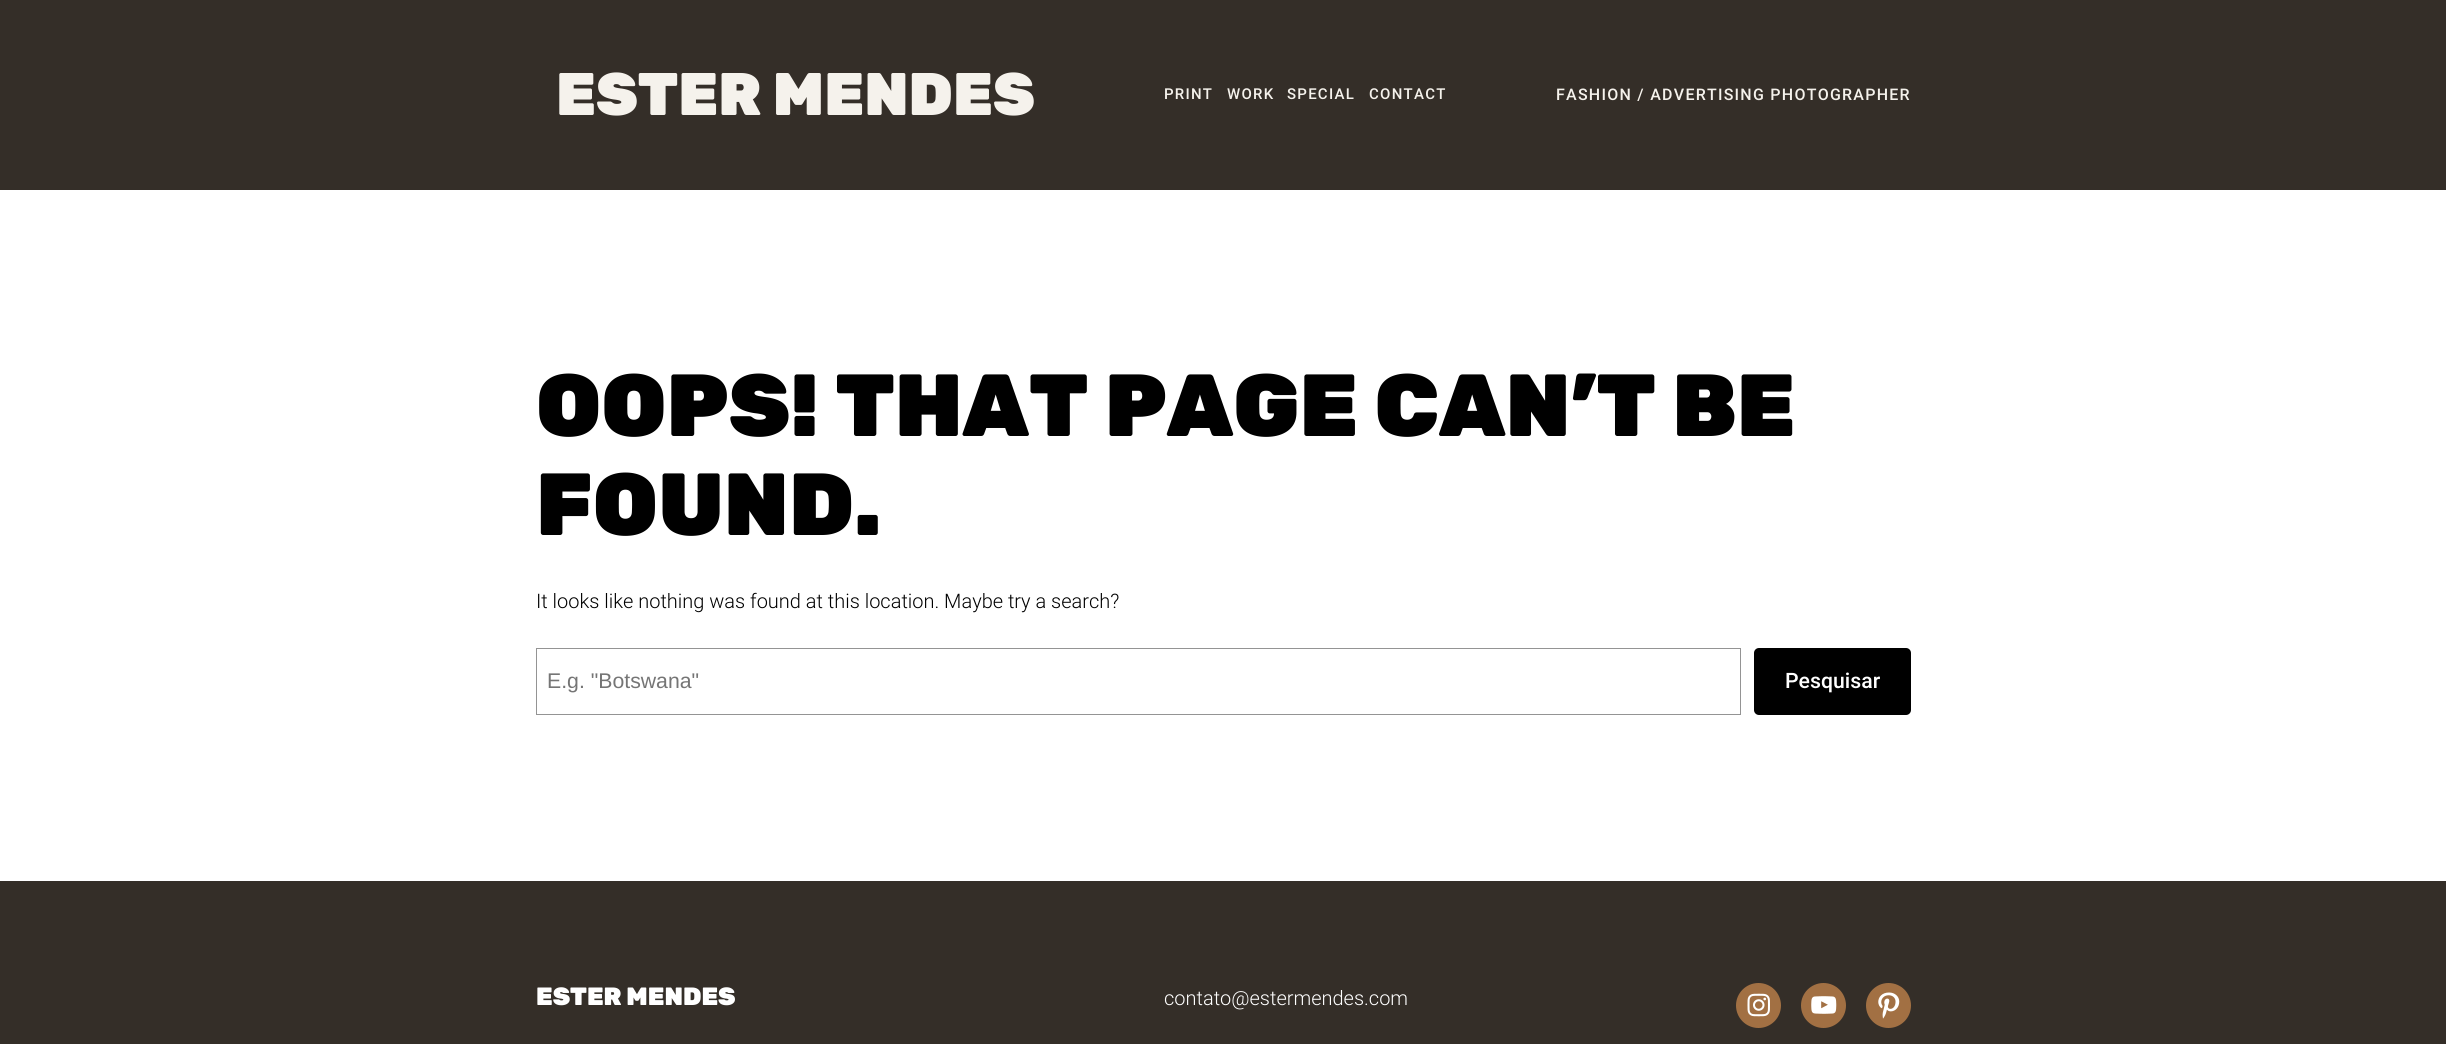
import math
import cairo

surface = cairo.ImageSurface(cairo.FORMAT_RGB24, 2446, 1044)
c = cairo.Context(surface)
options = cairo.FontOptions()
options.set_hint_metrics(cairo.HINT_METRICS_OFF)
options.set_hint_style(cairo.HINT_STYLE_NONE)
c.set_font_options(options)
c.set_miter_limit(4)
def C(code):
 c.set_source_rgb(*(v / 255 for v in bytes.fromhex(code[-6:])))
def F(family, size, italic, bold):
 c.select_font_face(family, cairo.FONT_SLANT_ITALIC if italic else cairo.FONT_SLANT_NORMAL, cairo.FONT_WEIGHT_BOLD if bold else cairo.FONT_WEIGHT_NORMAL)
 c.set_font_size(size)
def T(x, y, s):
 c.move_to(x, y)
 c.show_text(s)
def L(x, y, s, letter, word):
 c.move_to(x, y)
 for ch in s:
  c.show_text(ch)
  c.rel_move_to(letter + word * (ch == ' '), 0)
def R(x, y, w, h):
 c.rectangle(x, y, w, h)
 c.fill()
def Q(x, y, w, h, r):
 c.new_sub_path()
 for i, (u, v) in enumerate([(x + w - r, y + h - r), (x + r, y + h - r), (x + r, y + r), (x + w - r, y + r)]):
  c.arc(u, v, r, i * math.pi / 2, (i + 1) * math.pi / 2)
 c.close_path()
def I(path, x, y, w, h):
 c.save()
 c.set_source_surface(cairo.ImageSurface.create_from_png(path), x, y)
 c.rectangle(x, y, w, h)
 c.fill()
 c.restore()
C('ffffff')
c.paint()
C('342e28')
R(0,0,2446,190)
F('Rubik Black',60,0,0)
C('f5f2ec')
T(556,115,'ESTER MENDES')
F('Roboto Medium',15,0,0)
L(1164,99,'PRINT',1.25,0)
L(1227,99,'WORK',1.25,0)
L(1287,99,'SPECIAL',1.25,0)
L(1369,99,'CONTACT',1.25,0)
F('Roboto Medium',16,0,0)
L(1556,100,'FASHION / ADVERTISING PHOTOGRAPHER',1.25,0)
F('Rubik Black',88,0,0)
C('000000')
T(536,436,'OOPS! THAT PAGE CAN’T BE')
T(536,535,'FOUND.')
F('Roboto Light',20,0,0)
T(536,608,'It looks like nothing was found at this location. Maybe try a search?')
c.rectangle(536.5,648.5,1204,66)
C('949494')
c.set_line_width(1)
c.stroke()
F('Liberation Sans',21.25,0,0)
C('757575')
T(547,688,'E.g. "Botswana"')
C('000000')
Q(1754,648,157,67,5)
c.fill()
F('Roboto Medium',21.25,0,0)
C('ffffff')
T(1785,688,'Pesquisar')
C('342e28')
R(0,881,2446,163)
F('Rubik Black',25,0,0)
C('ffffff')
T(536,1005,'ESTER MENDES')
F('Roboto Light',20,0,0)
T(1164,1005,'contato@estermendes.com')
C('a27043')
c.new_path()
c.arc(1758.5,1005.5,22.5,0,2 * math.pi)
c.fill()
I('1.png',1747,993,23,24)
c.arc(1823.5,1005.5,22.5,0,2 * math.pi)
c.fill()
I('2.png',1811,996,26,18)
c.arc(1888.5,1005.5,22.5,0,2 * math.pi)
c.fill()
I('3.png',1878,992,22,27)
surface.write_to_png('o.png')
